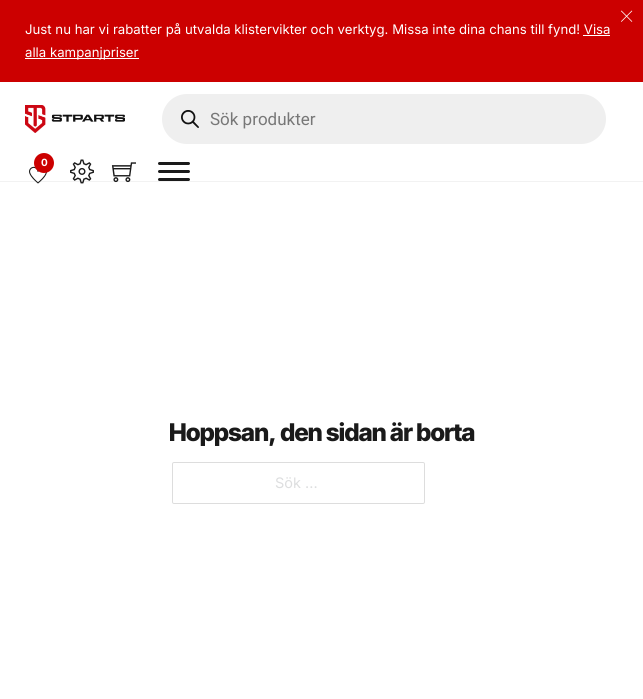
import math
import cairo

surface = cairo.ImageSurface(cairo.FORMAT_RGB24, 643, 699)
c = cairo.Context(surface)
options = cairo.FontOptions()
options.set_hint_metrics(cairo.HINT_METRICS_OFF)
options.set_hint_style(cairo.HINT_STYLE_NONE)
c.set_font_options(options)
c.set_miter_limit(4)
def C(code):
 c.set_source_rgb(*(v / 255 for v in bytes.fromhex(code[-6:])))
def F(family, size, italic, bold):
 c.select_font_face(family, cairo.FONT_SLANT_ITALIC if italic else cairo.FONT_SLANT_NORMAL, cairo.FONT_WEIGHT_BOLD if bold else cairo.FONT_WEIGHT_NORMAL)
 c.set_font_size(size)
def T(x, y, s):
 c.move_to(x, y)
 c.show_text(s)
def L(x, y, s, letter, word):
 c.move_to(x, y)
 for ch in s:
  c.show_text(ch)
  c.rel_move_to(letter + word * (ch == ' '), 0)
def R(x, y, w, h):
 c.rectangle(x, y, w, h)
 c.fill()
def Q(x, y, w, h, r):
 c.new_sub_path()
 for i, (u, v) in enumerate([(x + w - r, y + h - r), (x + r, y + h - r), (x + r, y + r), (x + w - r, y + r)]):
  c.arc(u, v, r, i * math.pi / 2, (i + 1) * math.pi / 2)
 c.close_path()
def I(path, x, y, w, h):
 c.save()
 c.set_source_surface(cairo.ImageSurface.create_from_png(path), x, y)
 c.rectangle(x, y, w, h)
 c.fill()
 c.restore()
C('ffffff')
c.paint()
C('cc0000')
R(0,0,643,82)
I('1.png',621,10,12,12)
F('Inter',13.2,0,0)
C('ffffff')
T(25,34,'Just nu har vi rabatter på utvalda klistervikter och verktyg. Missa inte dina chans till fynd! Visa')
R(25,58,114,1)
T(25,57,'alla kampanjpriser')
R(583,35,27,1)
C('f2f2f2')
R(0,181,643,1)
I('2.png',25,105,100,28)
C('efefef')
Q(161,93,446,52,26)
c.fill_preserve()
C('ffffff')
c.stroke()
I('3.png',181,110,18,18)
F('Roboto',17,0,0)
C('777777')
T(210,125,'Sök produkter')
I('4.png',29,166,18,18)
C('cc0000')
c.arc(44,163,10,0,2 * math.pi)
c.fill()
F('Inter',10,0,1)
C('ffffff')
T(41,166,'0')
I('5.png',70,159,24,25)
I('6.png',111,162,25,21)
C('1a1a1a')
Q(158,162,32,3,1.5)
c.fill()
Q(158,170,32,3,1.5)
c.fill()
Q(158,178,32,3,1.5)
c.fill()
F('Inter Tight ExtraBold',24.4,0,0)
L(169,441,'Hoppsan, den sidan är borta',-.6,0)
Q(172.5,462.5,252,41,1.5)
C('dddddd')
c.set_line_width(1)
c.stroke()
F('Inter',14.5,0,0)
C('dddedf')
T(275,488,'Sök ...')
surface.write_to_png('o.png')
